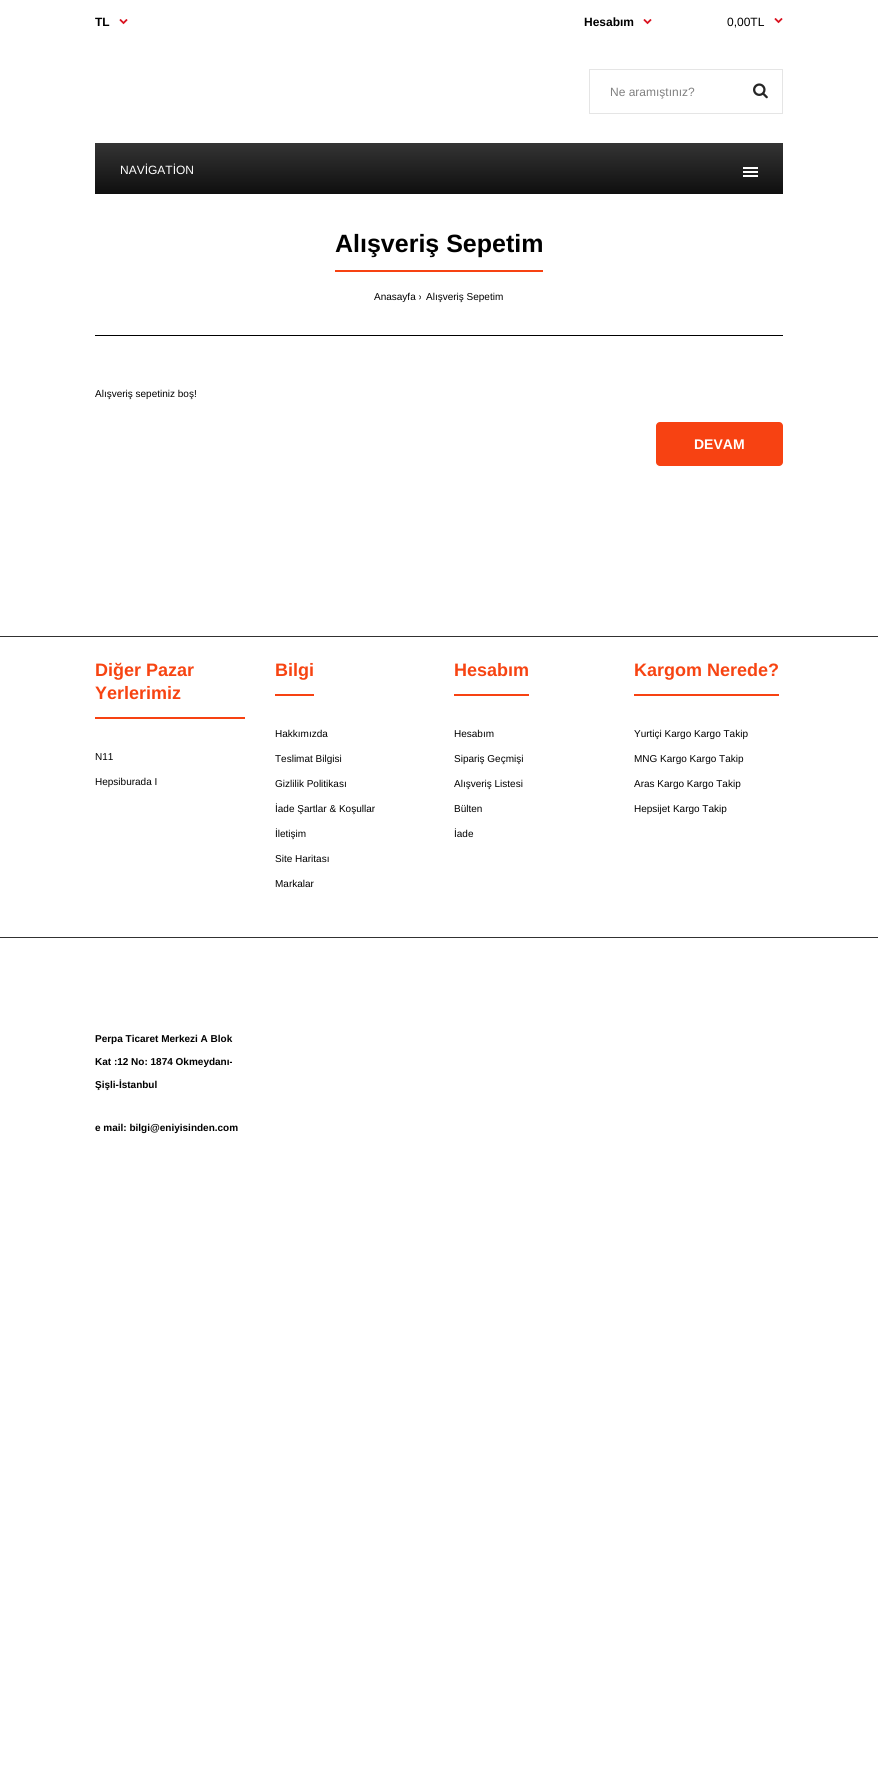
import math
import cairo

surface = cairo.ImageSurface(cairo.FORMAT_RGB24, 878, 1775)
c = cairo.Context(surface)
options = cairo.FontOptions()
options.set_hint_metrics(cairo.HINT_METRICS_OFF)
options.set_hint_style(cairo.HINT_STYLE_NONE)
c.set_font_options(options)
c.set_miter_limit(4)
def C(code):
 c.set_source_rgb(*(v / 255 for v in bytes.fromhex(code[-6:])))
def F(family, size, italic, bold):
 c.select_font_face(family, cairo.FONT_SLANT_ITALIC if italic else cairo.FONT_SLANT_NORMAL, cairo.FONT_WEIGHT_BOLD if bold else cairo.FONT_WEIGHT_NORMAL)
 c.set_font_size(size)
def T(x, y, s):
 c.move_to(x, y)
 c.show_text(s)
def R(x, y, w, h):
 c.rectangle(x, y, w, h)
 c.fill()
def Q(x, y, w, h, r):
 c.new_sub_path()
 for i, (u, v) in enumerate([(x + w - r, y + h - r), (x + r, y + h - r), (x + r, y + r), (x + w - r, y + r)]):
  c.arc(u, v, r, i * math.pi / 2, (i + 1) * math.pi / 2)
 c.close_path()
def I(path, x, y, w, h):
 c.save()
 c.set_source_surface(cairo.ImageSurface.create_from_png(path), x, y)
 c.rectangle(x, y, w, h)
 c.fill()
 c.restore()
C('ffffff')
c.paint()
F('Liberation Sans',12,0,1)
C('000000')
T(95,26,'TL')
I('1.png',119,19,9,6)
T(584,26,'Hesabım')
I('1.png',643,19,9,6)
F('Liberation Sans',12,0,0)
T(727,26,'0,00TL')
I('1.png',774,18,9,6)
c.rectangle(589.5,69.5,193,44)
C('e5e5e5')
c.set_line_width(1)
c.stroke()
C('808080')
T(610,96,'Ne aramıştınız?')
I('2.png',753,83,15,16)
gradient = cairo.LinearGradient(439,143,439,194)
gradient.add_color_stop_rgba(0,0.059,0.059,0.059,1)
gradient.add_color_stop_rgba(0,0.204,0.204,0.204,1)
gradient.add_color_stop_rgba(.99,0.059,0.059,0.059,1)
c.set_source(gradient)
R(95,143,688,51)
C('ffffff')
T(120,174,'NAVİGATİON')
R(743,167,15,2)
R(743,171,15,2)
R(743,175,15,2)
C('000000')
R(95,335,688,1)
C('f74212')
R(335,270,208,2)
F('Liberation Sans',25,0,1)
C('000000')
T(335,252,'Alışveriş Sepetim')
F('Liberation Sans',10,0,0)
T(374,300,'Anasayfa ›')
T(426,300,'Alışveriş Sepetim')
T(95,397,'Alışveriş sepetiniz boş!')
C('f74212')
Q(656,422,127,44,4)
c.fill()
F('Liberation Sans',14,0,1)
C('ffffff')
T(694,449,'DEVAM')
C('313131')
R(0,636,878,1)
C('f74212')
R(95,717,150,2)
F('Liberation Sans',18,0,1)
C('f74412')
T(95,676,'Diğer Pazar')
T(95,699,'Yerlerimiz')
F('Liberation Sans',10,0,0)
C('000000')
T(95,760,'N11')
T(95,785,'Hepsiburada I')
C('f74212')
R(275,694,39,2)
F('Liberation Sans',18,0,1)
C('f74412')
T(275,676,'Bilgi')
F('Liberation Sans',10,0,0)
C('000000')
T(275,737,'Hakkımızda')
T(275,762,'Teslimat Bilgisi')
T(275,787,'Gizlilik Politikası')
T(275,812,'İade Şartlar & Koşullar')
T(275,837,'İletişim')
T(275,862,'Site Haritası')
T(275,887,'Markalar')
C('f74212')
R(454,694,75,2)
F('Liberation Sans',18,0,1)
C('f74412')
T(454,676,'Hesabım')
F('Liberation Sans',10,0,0)
C('000000')
T(454,737,'Hesabım')
T(454,762,'Sipariş Geçmişi')
T(454,787,'Alışveriş Listesi')
T(454,812,'Bülten')
T(454,837,'İade')
C('f74212')
R(634,694,145,2)
F('Liberation Sans',18,0,1)
C('f74412')
T(634,676,'Kargom Nerede?')
F('Liberation Sans',10,0,0)
C('000000')
T(634,737,'Yurtiçi Kargo Kargo Takip')
T(634,762,'MNG Kargo Kargo Takip')
T(634,787,'Aras Kargo Kargo Takip')
T(634,812,'Hepsijet Kargo Takip')
C('313131')
R(0,937,878,1)
F('Liberation Sans',10,0,1)
C('000000')
T(95,1042,'Perpa Ticaret Merkezi A Blok')
T(95,1065,'Kat :12 No: 1874 Okmeydanı-')
T(95,1088,'Şişli-İstanbul')
T(95,1131,'e mail: bilgi@eniyisinden.com')
surface.write_to_png('o.png')
